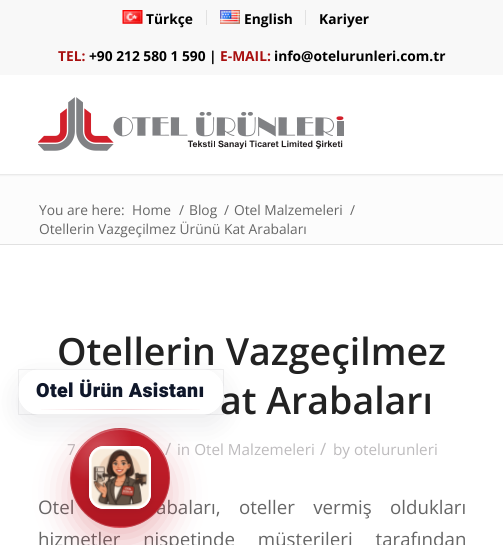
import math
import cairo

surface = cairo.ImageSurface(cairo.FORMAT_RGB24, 503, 545)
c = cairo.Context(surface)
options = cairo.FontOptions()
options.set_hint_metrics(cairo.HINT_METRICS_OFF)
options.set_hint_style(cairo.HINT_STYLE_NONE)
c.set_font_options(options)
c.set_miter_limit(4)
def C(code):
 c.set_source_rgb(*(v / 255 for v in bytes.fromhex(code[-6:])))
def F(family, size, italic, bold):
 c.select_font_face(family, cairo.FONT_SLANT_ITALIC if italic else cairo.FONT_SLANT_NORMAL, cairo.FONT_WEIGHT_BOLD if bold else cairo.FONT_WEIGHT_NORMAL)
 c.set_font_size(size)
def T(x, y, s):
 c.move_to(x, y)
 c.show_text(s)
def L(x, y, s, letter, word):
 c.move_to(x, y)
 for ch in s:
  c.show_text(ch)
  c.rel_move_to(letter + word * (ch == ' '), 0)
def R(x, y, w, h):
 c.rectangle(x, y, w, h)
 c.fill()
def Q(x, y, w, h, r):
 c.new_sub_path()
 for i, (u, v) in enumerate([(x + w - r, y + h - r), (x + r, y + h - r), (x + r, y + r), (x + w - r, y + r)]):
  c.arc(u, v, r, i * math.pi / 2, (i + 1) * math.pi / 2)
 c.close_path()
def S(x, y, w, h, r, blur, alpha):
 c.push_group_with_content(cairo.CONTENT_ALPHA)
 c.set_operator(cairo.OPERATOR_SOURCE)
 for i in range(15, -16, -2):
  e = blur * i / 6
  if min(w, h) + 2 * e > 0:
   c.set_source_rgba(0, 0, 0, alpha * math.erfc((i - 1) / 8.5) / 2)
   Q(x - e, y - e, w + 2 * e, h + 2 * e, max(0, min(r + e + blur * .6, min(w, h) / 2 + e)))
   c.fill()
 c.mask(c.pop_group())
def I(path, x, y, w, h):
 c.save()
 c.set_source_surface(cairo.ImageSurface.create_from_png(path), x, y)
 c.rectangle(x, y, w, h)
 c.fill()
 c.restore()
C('ffffff')
c.paint()
C('fcfcfc')
R(0,174,503,70)
C('000000')
S(-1,-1,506,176,0,1,.1)
C('f8f8f8')
R(0,0,503,75)
C('e1e1e1')
R(206,10,1,15)
I('1.png',122,10,21,14)
F('Open Sans',13.75,0,1)
C('000000')
T(146,24,'Türkçe')
C('e1e1e1')
R(305,10,1,15)
I('2.png',220,10,20,14)
C('000000')
T(244,24,'English')
T(319,24,'Kariyer')
C('a81010')
T(58,61,'TEL:')
C('000000')
T(89,61,'+90 212 580 1 590 |')
C('a81010')
T(220,61,'E-MAIL:')
C('000000')
T(274,61,'info@otelurunleri.com.tr')
C('ffffff')
R(0,75,503,99)
I('3.png',38,97,306,54)
F('Open Sans',13.75,0,0)
C('666666')
T(39,215,'You are here:')
T(132,215,'Home')
T(179,215,'/')
T(189,215,'Blog')
T(224,215,'/')
T(234,215,'Otel Malzemeleri')
T(350,215,'/')
T(39,234,'Otellerin Vazgeçilmez Ürünü Kat Arabaları')
C('e1e1e1')
R(0,244,503,1)
F('Open Sans SemiBold',37.5,0,0)
C('222222')
T(57,365,'Otellerin Vazgeçilmez')
T(220,414,'at Arabaları')
F('Open Sans',15.25,0,0)
C('bdbbbd')
T(67,455,'7')
F('Open Sans',17,0,0)
T(165,455,'/')
F('Open Sans',15.25,0,0)
T(177,455,'in Otel Malzemeleri')
F('Open Sans',17,0,0)
T(320,455,'/')
F('Open Sans',15.25,0,0)
T(333,455,'by otelurunleri')
F('Open Sans',18.7,0,0)
C('666666')
L(38,514,'Otel',0,13.5)
L(156,514,'abaları, oteller vermiş oldukları',0,13.5)
L(38,546,'hizmetler nispetinde müşterileri tarafından',0,18)
C('c61f2c')
S(70,443,100,100,50,17.5,.3)
c.save()
Q(70,428,100,100,50)
c.clip()
gradient = cairo.LinearGradient(120,331,120,429)
gradient.add_color_stop_rgba(0,0.776,0.122,0.173,1)
gradient.add_color_stop_rgba(1,0.69,0.09,0.133,1)
c.set_source(gradient)
R(110,428,20,1)
gradient = cairo.LinearGradient(120,429,120,526)
gradient.add_color_stop_rgba(0,0.776,0.122,0.173,1)
gradient.add_color_stop_rgba(1,0.69,0.09,0.133,1)
c.set_source(gradient)
R(70,429,100,97)
gradient = cairo.RadialGradient(99,450,0,99,450,59)
gradient.add_color_stop_rgba(0,1,1,1,.22)
gradient.add_color_stop_rgba(.6,1,1,1,0)
c.set_source(gradient)
R(72,429,59,51)
c.restore()
c.set_source_rgba(1,1,1,0.25)
c.new_path()
c.move_to(120,430)
c.curve_to(147,430,169,452,169,478)
c.curve_to(169,468,166,459,161,450)
c.curve_to(134,411,70,430,71,478)
c.curve_to(71,452,93,430,120,430)
c.close_path()
c.fill()
c.save()
Q(70,428,100,100,50)
c.clip()
gradient = cairo.LinearGradient(120,526,120,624)
gradient.add_color_stop_rgba(0,0.776,0.122,0.173,1)
gradient.add_color_stop_rgba(1,0.69,0.09,0.133,1)
c.set_source(gradient)
R(106,526,28,2)
gradient = cairo.RadialGradient(99,548,0,99,548,59)
gradient.add_color_stop_rgba(0,1,1,1,.22)
gradient.add_color_stop_rgba(.6,1,1,1,0)
c.set_source(gradient)
R(107,526,16,2)
c.restore()
c.arc(120,478,49.5,0,2 * math.pi)
c.set_source_rgba(1,1,1,0.18)
c.set_line_width(1)
c.stroke()
C('020617')
S(89,449,62,62,15,4,.08)
C('ffffff')
Q(89,446,62,63,15)
c.fill()
Q(90.5,447.5,59,60,13.5)
c.set_source_rgba(1,1,1,0.95)
c.set_line_width(3)
c.stroke()
I('4.png',91,448,58,59)
c.save()
c.set_fill_rule(cairo.FILL_RULE_EVEN_ODD)
c.new_path()
c.move_to(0,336)
c.line_to(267,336)
c.line_to(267,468)
c.line_to(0,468)
c.close_path()
c.move_to(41,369)
c.line_to(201,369)
c.curve_to(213.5,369,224,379.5,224,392)
c.curve_to(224,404.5,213.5,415,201,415)
c.line_to(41,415)
c.curve_to(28.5,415,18,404.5,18,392)
c.curve_to(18,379.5,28.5,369,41,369)
c.close_path()
c.clip()
C('020617')
S(18,379,206,46,23,14,.08)
c.restore()
c.set_source_rgba(1,1,1,0.72)
Q(18,369,206,46,23)
c.fill()
c.save()
Q(18,369,206,46,23)
c.clip()
gradient = cairo.LinearGradient(121,370,121,414)
gradient.add_color_stop_rgba(0,1,1,1,.92)
gradient.add_color_stop_rgba(1,1,1,1,.66)
c.set_source(gradient)
R(18,370,206,44)
c.restore()
c.rectangle(18.5,369.5,205,45)
c.set_source_rgba(0.008,0.024,0.09,0.06)
c.set_line_width(1)
c.stroke()
F('Heebo Black',19.5,0,0)
C('0f172a')
L(36,397,'Otel Ürün Asistanı',.4,0)
gradient = cairo.LinearGradient(31,409,210,409)
gradient.add_color_stop_rgba(0,0.776,0.122,0.173,0)
gradient.add_color_stop_rgba(.5,0.776,0.122,0.173,.2)
gradient.add_color_stop_rgba(1,0.776,0.122,0.173,0)
c.set_source(gradient)
R(41,409,159,1)
surface.write_to_png('o.png')
